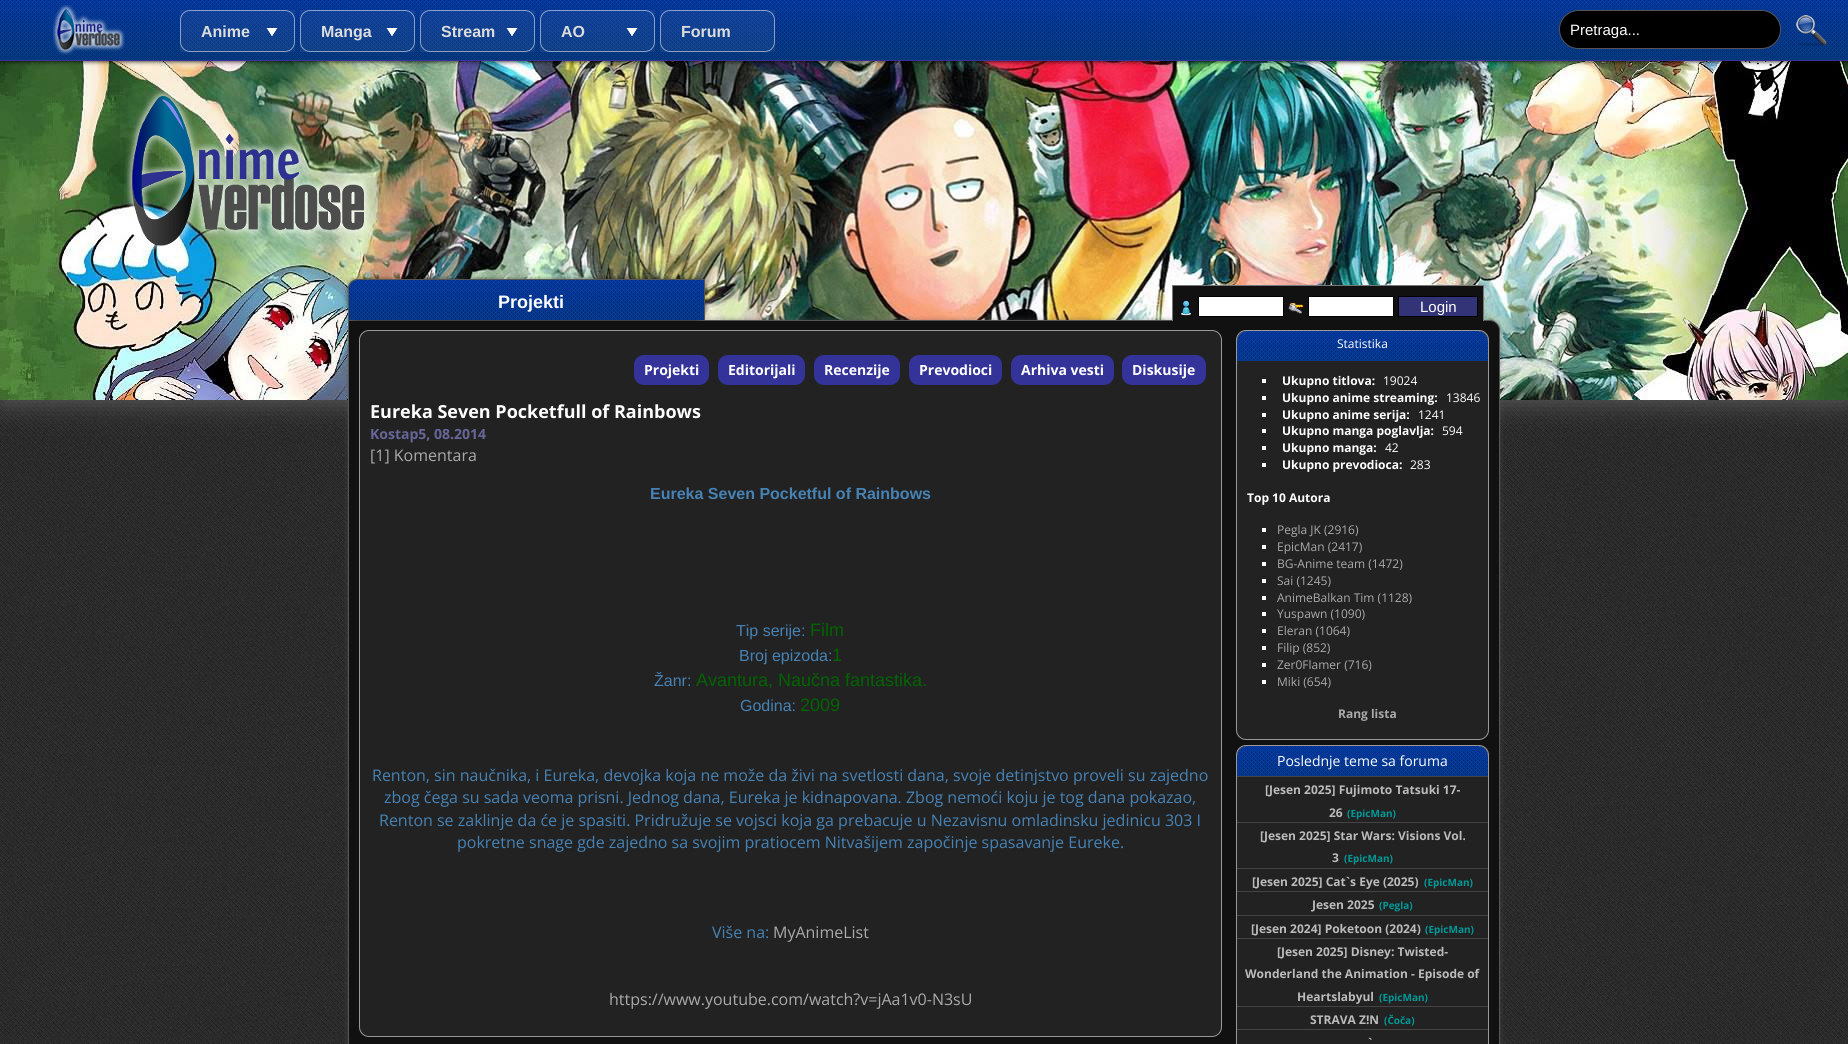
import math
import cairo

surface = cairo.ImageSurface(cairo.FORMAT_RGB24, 1848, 1044)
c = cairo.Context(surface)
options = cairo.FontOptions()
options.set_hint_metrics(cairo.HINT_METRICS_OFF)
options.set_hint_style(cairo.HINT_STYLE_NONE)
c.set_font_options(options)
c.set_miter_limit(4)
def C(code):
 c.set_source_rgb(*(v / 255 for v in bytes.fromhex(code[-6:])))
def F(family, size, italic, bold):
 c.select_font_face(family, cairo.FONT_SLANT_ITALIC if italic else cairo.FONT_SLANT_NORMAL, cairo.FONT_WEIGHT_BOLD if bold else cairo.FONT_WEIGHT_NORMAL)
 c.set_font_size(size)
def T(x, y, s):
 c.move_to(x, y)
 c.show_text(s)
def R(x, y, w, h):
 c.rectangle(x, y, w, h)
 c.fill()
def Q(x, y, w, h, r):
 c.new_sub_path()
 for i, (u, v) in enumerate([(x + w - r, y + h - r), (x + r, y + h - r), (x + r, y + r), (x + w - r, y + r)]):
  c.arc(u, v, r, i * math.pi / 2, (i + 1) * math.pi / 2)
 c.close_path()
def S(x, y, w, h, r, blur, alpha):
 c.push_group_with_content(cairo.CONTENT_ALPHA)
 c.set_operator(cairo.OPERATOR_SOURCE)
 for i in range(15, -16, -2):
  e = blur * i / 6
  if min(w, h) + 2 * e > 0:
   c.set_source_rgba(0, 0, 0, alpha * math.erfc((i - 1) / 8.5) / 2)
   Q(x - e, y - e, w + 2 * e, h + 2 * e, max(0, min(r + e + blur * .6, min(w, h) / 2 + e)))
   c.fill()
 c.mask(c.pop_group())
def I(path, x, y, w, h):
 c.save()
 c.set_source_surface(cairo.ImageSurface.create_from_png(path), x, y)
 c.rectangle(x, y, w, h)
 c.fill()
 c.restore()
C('ffffff')
c.paint()
I('1.png',0,400,1848,644)
C('555555')
S(0,5,1848,400,0,12.5,1)
I('2.png',0,61,1848,339)
C('000000')
S(0,0,1848,61,0,2.5,1)
I('3.png',0,0,1848,60)
C('333399')
R(0,60,1848,1)
I('4.png',53,5,72,50)
c.set_source_rgba(1,1,1,0.05)
R(180,10,115,42)
I('5.png',266,28,12,8)
Q(180.5,10.5,114,41,9.5)
c.set_source_rgba(1,1,1,0.5)
c.set_line_width(1)
c.stroke()
F('Liberation Sans',16,0,1)
C('dddddd')
T(201,37,'Anime')
c.set_source_rgba(1,1,1,0.05)
R(300,10,115,42)
I('5.png',386,28,12,8)
Q(300.5,10.5,114,41,9.5)
c.set_source_rgba(1,1,1,0.5)
c.stroke()
C('dddddd')
T(321,37,'Manga')
c.set_source_rgba(1,1,1,0.05)
R(420,10,115,42)
I('6.png',506,28,12,8)
Q(420.5,10.5,114,41,9.5)
c.set_source_rgba(1,1,1,0.5)
c.stroke()
C('dddddd')
T(441,37,'Stream')
c.set_source_rgba(1,1,1,0.05)
R(540,10,115,42)
I('6.png',626,28,12,8)
Q(540.5,10.5,114,41,9.5)
c.set_source_rgba(1,1,1,0.5)
c.stroke()
C('dddddd')
T(561,37,'AO')
c.set_source_rgba(1,1,1,0.05)
R(660,10,115,42)
Q(660.5,10.5,114,41,9.5)
c.set_source_rgba(1,1,1,0.5)
c.stroke()
C('dddddd')
T(681,37,'Forum')
C('000000')
Q(1559.5,10.5,221,38,19)
c.fill_preserve()
C('555555')
c.stroke()
F('Liberation Sans',15,0,0)
C('ffffff')
T(1570,35,'Pretraga...')
I('7.png',1796,15,31,31)
I('8.png',124,89,247,164)
C('5a5a5a')
S(348,320,1152,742,10,2.5,.5)
C('111111')
c.new_path()
c.move_to(348.5,320.5)
c.line_to(1490,320.5)
c.curve_to(1495,320.5,1499.5,325,1499.5,330)
c.line_to(1499.5,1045)
c.curve_to(1499.5,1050,1495,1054.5,1490,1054.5)
c.line_to(358,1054.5)
c.curve_to(353,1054.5,348.5,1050,348.5,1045)
c.close_path()
c.fill_preserve()
C('555555')
c.stroke()
C('000000')
S(348,279,357,41,10,2.5,.5)
I('9.png',348,280,356,40)
C('555555')
c.set_fill_rule(cairo.FILL_RULE_EVEN_ODD)
c.new_path()
c.move_to(358,279)
c.line_to(705,279)
c.line_to(705,320)
c.line_to(348,320)
c.line_to(348,289)
c.curve_to(348,283,352,279,358,279)
c.close_path()
c.move_to(358,280)
c.line_to(704,280)
c.line_to(704,320)
c.line_to(349,320)
c.line_to(349,289)
c.curve_to(349,284,353,280,358,280)
c.close_path()
c.fill()
F('Liberation Sans',18,0,1)
C('ffffff')
T(498,308,'Projekti')
C('111111')
R(1173,286,310,35)
C('777777')
R(1172,285,312,1)
R(1483,285,1,36)
R(1172,285,1,36)
I('10.png',1181,300,10,16)
C('ffffff')
c.rectangle(1198.5,296.5,85,20)
c.fill_preserve()
C('000000')
c.stroke()
I('11.png',1288,302,16,12)
C('ffffff')
c.rectangle(1308.5,296.5,85,20)
c.fill_preserve()
C('000000')
c.stroke()
C('333377')
c.rectangle(1398.5,296.5,79,20)
c.fill_preserve()
C('000000')
c.stroke()
F('Liberation Sans',15,0,0)
C('ffffff')
T(1420,312,'Login')
C('222222')
Q(359.5,330.5,862,706,9.5)
c.fill_preserve()
C('999999')
c.stroke()
C('333399')
Q(634,355,75,30,10)
c.fill()
F('Open Sans',14,0,1)
C('ffffff')
T(644,375,'Projekti')
C('333399')
Q(718,355,87,30,10)
c.fill()
C('ffffff')
T(728,375,'Editorijali')
C('333399')
Q(814,355,86,30,10)
c.fill()
C('ffffff')
T(824,375,'Recenzije')
C('333399')
Q(909,355,93,30,10)
c.fill()
C('ffffff')
T(919,375,'Prevodioci')
C('333399')
Q(1011,355,103,30,10)
c.fill()
C('ffffff')
T(1021,375,'Arhiva vesti')
C('333399')
Q(1122,355,84,30,10)
c.fill()
C('ffffff')
T(1132,375,'Diskusije')
F('Open Sans',18,0,1)
T(370,418,'Eureka Seven Pocketfull of Rainbows')
F('Open Sans',14,0,1)
C('666699')
T(370,439,'Kostap5, 08.2014')
F('Open Sans',16,0,0)
C('aaaaaa')
T(370,461,'[1] Komentara')
F('Liberation Sans',16,0,1)
C('4682b4')
T(650,499,'Eureka Seven Pocketful of Rainbows')
F('Liberation Sans',16,0,0)
T(736,636,'Tip serije:')
F('Liberation Sans',18,0,0)
C('006400')
T(810,636,'Film')
F('Liberation Sans',16,0,0)
C('4682b4')
T(739,661,'Broj epizoda:')
F('Liberation Sans',18,0,0)
C('006400')
T(832,661,'1')
F('Liberation Sans',16,0,0)
C('4682b4')
T(654,686,'Žanr:')
F('Liberation Sans',18,0,0)
C('006400')
T(696,686,'Avantura, Naučna fantastika.')
F('Liberation Sans',16,0,0)
C('4682b4')
T(740,711,'Godina:')
F('Liberation Sans',18,0,0)
C('006400')
T(800,711,'2009')
F('Open Sans',16,0,0)
C('4682b4')
T(372,781,'Renton, sin naučnika, i Eureka, devojka koja ne može da živi na svetlosti dana, svoje detinjstvo proveli su zajedno')
T(384,803,'zbog čega su sada veoma prisni. Jednog dana, Eureka je kidnapovana. Zbog nemoći koju je tog dana pokazao,')
T(379,826,'Renton se zaklinje da će je spasiti. Pridružuje se vojsci koja ga prebacuje u Nezavisnu omladinsku jedinicu 303 I')
T(457,848,'pokretne snage gde zajedno sa svojim pratiocem Nitvašijem započinje spasavanje Eureke.')
T(712,938,'Više na:')
C('aaaaaa')
T(773,938,'MyAnimeList')
T(609,1005,'https://www.youtube.com/watch?v=jAa1v0-N3sU')
C('222222')
Q(1236.5,330.5,252,409,9.5)
c.fill_preserve()
C('999999')
c.stroke()
c.new_path()
c.move_to(1247,331)
c.line_to(1478,331)
c.curve_to(1483.5,331,1488,335.5,1488,341)
c.line_to(1488,361)
c.line_to(1237,361)
c.line_to(1237,341)
c.curve_to(1237,335.5,1241.5,331,1247,331)
c.close_path()
c.fill()
I('12.png',1237,331,251,30)
F('Open Sans',12,0,0)
C('ffffff')
T(1337,348,'Statistika')
R(1262,379,4,4)
F('Open Sans',12,0,1)
T(1282,385,'Ukupno titlova:')
F('Open Sans',12,0,0)
T(1383,385,'19024')
R(1262,396,4,4)
F('Open Sans',12,0,1)
T(1282,402,'Ukupno anime streaming:')
F('Open Sans',12,0,0)
T(1446,402,'13846')
R(1262,413,4,4)
F('Open Sans',12,0,1)
T(1282,419,'Ukupno anime serija:')
F('Open Sans',12,0,0)
T(1418,419,'1241')
R(1262,429,4,4)
F('Open Sans',12,0,1)
T(1282,435,'Ukupno manga poglavlja:')
F('Open Sans',12,0,0)
T(1442,435,'594')
R(1262,446,4,4)
F('Open Sans',12,0,1)
T(1282,452,'Ukupno manga:')
F('Open Sans',12,0,0)
T(1385,452,'42')
R(1262,463,4,4)
F('Open Sans',12,0,1)
T(1282,469,'Ukupno prevodioca:')
F('Open Sans',12,0,0)
T(1410,469,'283')
F('Open Sans',12,0,1)
T(1247,502,'Top 10 Autora')
R(1262,528,4,4)
F('Open Sans',12,0,0)
C('aaaaaa')
T(1277,534,'Pegla JK (2916)')
C('ffffff')
R(1262,545,4,4)
C('aaaaaa')
T(1277,551,'EpicMan (2417)')
C('ffffff')
R(1262,562,4,4)
C('aaaaaa')
T(1277,568,'BG-Anime team (1472)')
C('ffffff')
R(1262,579,4,4)
C('aaaaaa')
T(1277,585,'Sai (1245)')
C('ffffff')
R(1262,596,4,4)
C('aaaaaa')
T(1277,602,'AnimeBalkan Tim (1128)')
C('ffffff')
R(1262,612,4,4)
C('aaaaaa')
T(1277,618,'Yuspawn (1090)')
C('ffffff')
R(1262,629,4,4)
C('aaaaaa')
T(1277,635,'Eleran (1064)')
C('ffffff')
R(1262,646,4,4)
C('aaaaaa')
T(1277,652,'Filip (852)')
C('ffffff')
R(1262,663,4,4)
C('aaaaaa')
T(1277,669,'Zer0Flamer (716)')
C('ffffff')
R(1262,680,4,4)
C('aaaaaa')
T(1277,686,'Miki (654)')
F('Open Sans',12,0,1)
T(1338,718,'Rang lista')
C('222222')
Q(1236.5,745.5,252,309,9.5)
c.fill_preserve()
C('999999')
c.stroke()
c.new_path()
c.move_to(1247,746)
c.line_to(1478,746)
c.curve_to(1483.5,746,1488,750.5,1488,756)
c.line_to(1488,776)
c.line_to(1237,776)
c.line_to(1237,756)
c.curve_to(1237,750.5,1241.5,746,1247,746)
c.close_path()
c.fill()
I('12.png',1237,746,251,30)
F('Open Sans',14,0,0)
C('ffffff')
T(1277,766,'Poslednje teme sa foruma')
C('444444')
R(1237,776,251,1)
F('Open Sans',12,0,1)
C('bbbbbb')
T(1265,794,'[Jesen 2025] Fujimoto Tatsuki 17-')
T(1329,817,'26')
F('Open Sans',10,0,1)
C('009999')
T(1347,817,'(EpicMan)')
C('444444')
R(1237,822,251,1)
F('Open Sans',12,0,1)
C('bbbbbb')
T(1260,840,'[Jesen 2025] Star Wars: Visions Vol.')
T(1332,862,'3')
F('Open Sans',10,0,1)
C('009999')
T(1344,862,'(EpicMan)')
C('444444')
R(1237,868,251,1)
F('Open Sans',12,0,1)
C('bbbbbb')
T(1252,886,'[Jesen 2025] Cat`s Eye (2025)')
F('Open Sans',10,0,1)
C('009999')
T(1424,886,'(EpicMan)')
C('444444')
R(1237,891,251,1)
F('Open Sans',12,0,1)
C('bbbbbb')
T(1312,909,'Jesen 2025')
F('Open Sans',10,0,1)
C('009999')
T(1379,909,'(Pegla)')
C('444444')
R(1237,915,251,1)
F('Open Sans',12,0,1)
C('bbbbbb')
T(1251,933,'[Jesen 2024] Poketoon (2024)')
F('Open Sans',10,0,1)
C('009999')
T(1425,933,'(EpicMan)')
C('444444')
R(1237,938,251,1)
F('Open Sans',12,0,1)
C('bbbbbb')
T(1277,956,'[Jesen 2025] Disney: Twisted-')
T(1245,978,'Wonderland the Animation - Episode of')
T(1297,1001,'Heartslabyul')
F('Open Sans',10,0,1)
C('009999')
T(1379,1001,'(EpicMan)')
C('444444')
R(1237,1006,251,1)
F('Open Sans',12,0,1)
C('bbbbbb')
T(1310,1024,'STRAVA Z!N')
F('Open Sans',10,0,1)
C('009999')
T(1384,1024,'(Čoča)')
C('444444')
R(1237,1029,251,1)
F('Open Sans',12,0,1)
C('bbbbbb')
T(1368,1047,'`')
surface.write_to_png('o.png')
